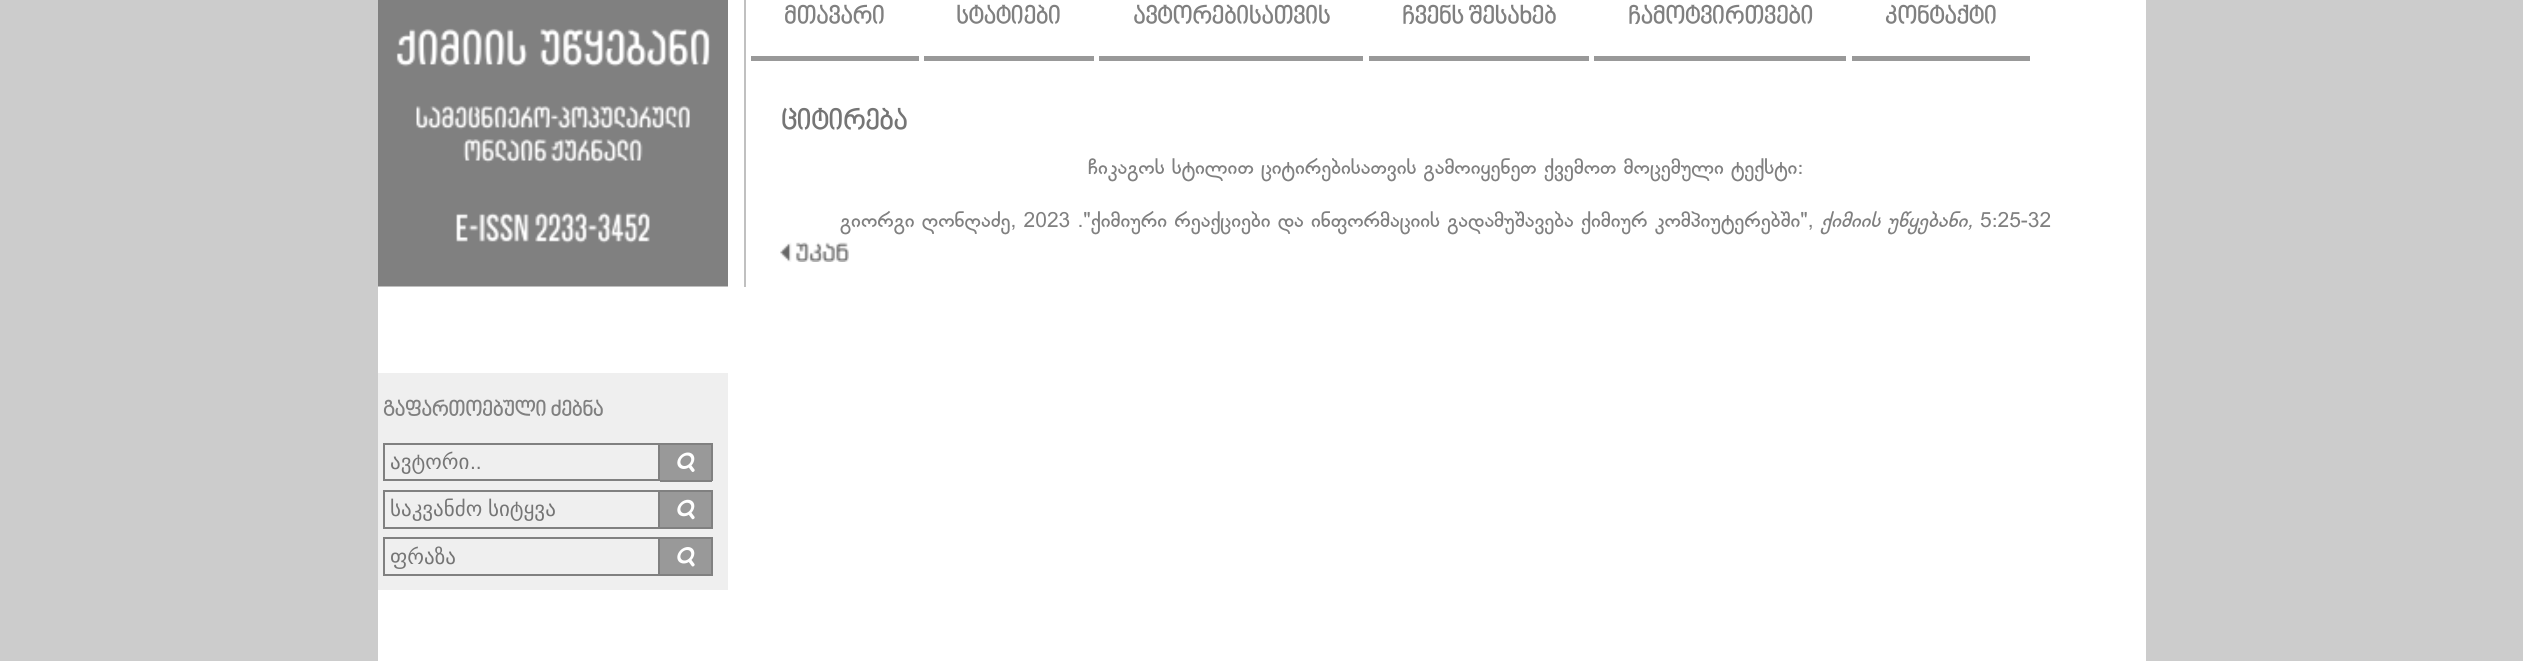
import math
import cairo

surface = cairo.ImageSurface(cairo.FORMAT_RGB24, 2523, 661)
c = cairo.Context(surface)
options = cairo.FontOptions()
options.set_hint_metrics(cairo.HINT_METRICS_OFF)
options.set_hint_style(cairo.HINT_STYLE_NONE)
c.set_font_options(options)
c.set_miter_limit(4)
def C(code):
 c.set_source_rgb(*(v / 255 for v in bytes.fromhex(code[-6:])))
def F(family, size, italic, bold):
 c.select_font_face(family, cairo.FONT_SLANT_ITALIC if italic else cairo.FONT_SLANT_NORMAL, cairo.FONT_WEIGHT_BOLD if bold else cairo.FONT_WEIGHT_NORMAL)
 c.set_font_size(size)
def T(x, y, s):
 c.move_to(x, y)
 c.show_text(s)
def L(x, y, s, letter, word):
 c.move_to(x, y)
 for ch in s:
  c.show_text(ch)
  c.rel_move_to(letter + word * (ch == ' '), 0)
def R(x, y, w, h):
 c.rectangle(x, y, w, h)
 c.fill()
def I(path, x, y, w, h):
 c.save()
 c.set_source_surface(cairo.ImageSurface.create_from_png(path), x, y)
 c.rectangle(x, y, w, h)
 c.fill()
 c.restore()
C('cccccc')
c.paint()
C('ffffff')
R(378,0,1768,661)
C('c0c0c0')
R(744,0,2,287)
C('999999')
R(751,56,168,5)
F('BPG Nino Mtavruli',24.5,0,1)
C('808080')
T(784,25,'მთავარი')
C('999999')
R(924,56,170,5)
C('808080')
T(956,25,'სტატიები')
C('999999')
R(1099,56,264,5)
C('808080')
T(1133,25,'ავტორებისათვის')
C('999999')
R(1369,56,220,5)
C('808080')
T(1402,25,'ჩვენს შესახებ')
C('999999')
R(1594,56,252,5)
C('808080')
T(1628,25,'ჩამოტვირთვები')
C('999999')
R(1852,56,178,5)
C('808080')
T(1885,25,'კონტაქტი')
F('BPG Nino Mtavruli',28,0,1)
C('757575')
T(781,131,'ციტირება')
F('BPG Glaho',21,0,0)
C('808080')
T(1088,174,'ჩიკაგოს სტილით ციტირებისათვის გამოიყენეთ ქვემოთ მოცემული ტექსტი:')
T(840,227,'გიორგი ღონღაძე, 2023 ."ქიმიური რეაქციები და ინფორმაციის გადამუშავება ქიმიურ კომპიუტერებში",')
F('BPG Glaho',21,1,0)
T(1821,227,'ქიმიის უწყებანი,')
F('BPG Glaho',21,0,0)
T(1980,227,'5:25-32')
I('1.png',780,242,69,20)
I('2.png',378,0,350,287)
C('efefef')
R(378,373,350,217)
F('BPG Nino Mtavruli',21,0,1)
C('808080')
T(383,417,'გაფართოებული ძებნა')
c.rectangle(384,444,275,36)
c.stroke()
F('DejaVu Sans',21,0,0)
C('757575')
T(390,469,'ავტორი')
F('Liberation Sans',21,0,0)
T(470,469,'..')
C('999999')
R(660,445,51,35)
C('808080')
R(660,443,52,2)
R(711,443,2,38)
R(660,480,52,2)
I('3.png',677,452,18,20)
c.rectangle(384,491,275,37)
c.stroke()
F('DejaVu Sans',21,0,0)
C('757575')
L(390,516,'საკვანძო სიტყვა',0,-1)
C('999999')
R(660,492,51,35)
C('808080')
R(660,490,52,2)
R(711,490,2,39)
R(660,527,52,2)
I('4.png',677,499,18,21)
c.rectangle(384,538,275,37)
c.stroke()
C('757575')
T(390,564,'ფრაზა')
C('999999')
R(660,539,51,35)
C('808080')
R(660,537,52,2)
R(711,537,2,39)
R(660,574,52,2)
I('5.png',677,547,18,20)
surface.write_to_png('o.png')
